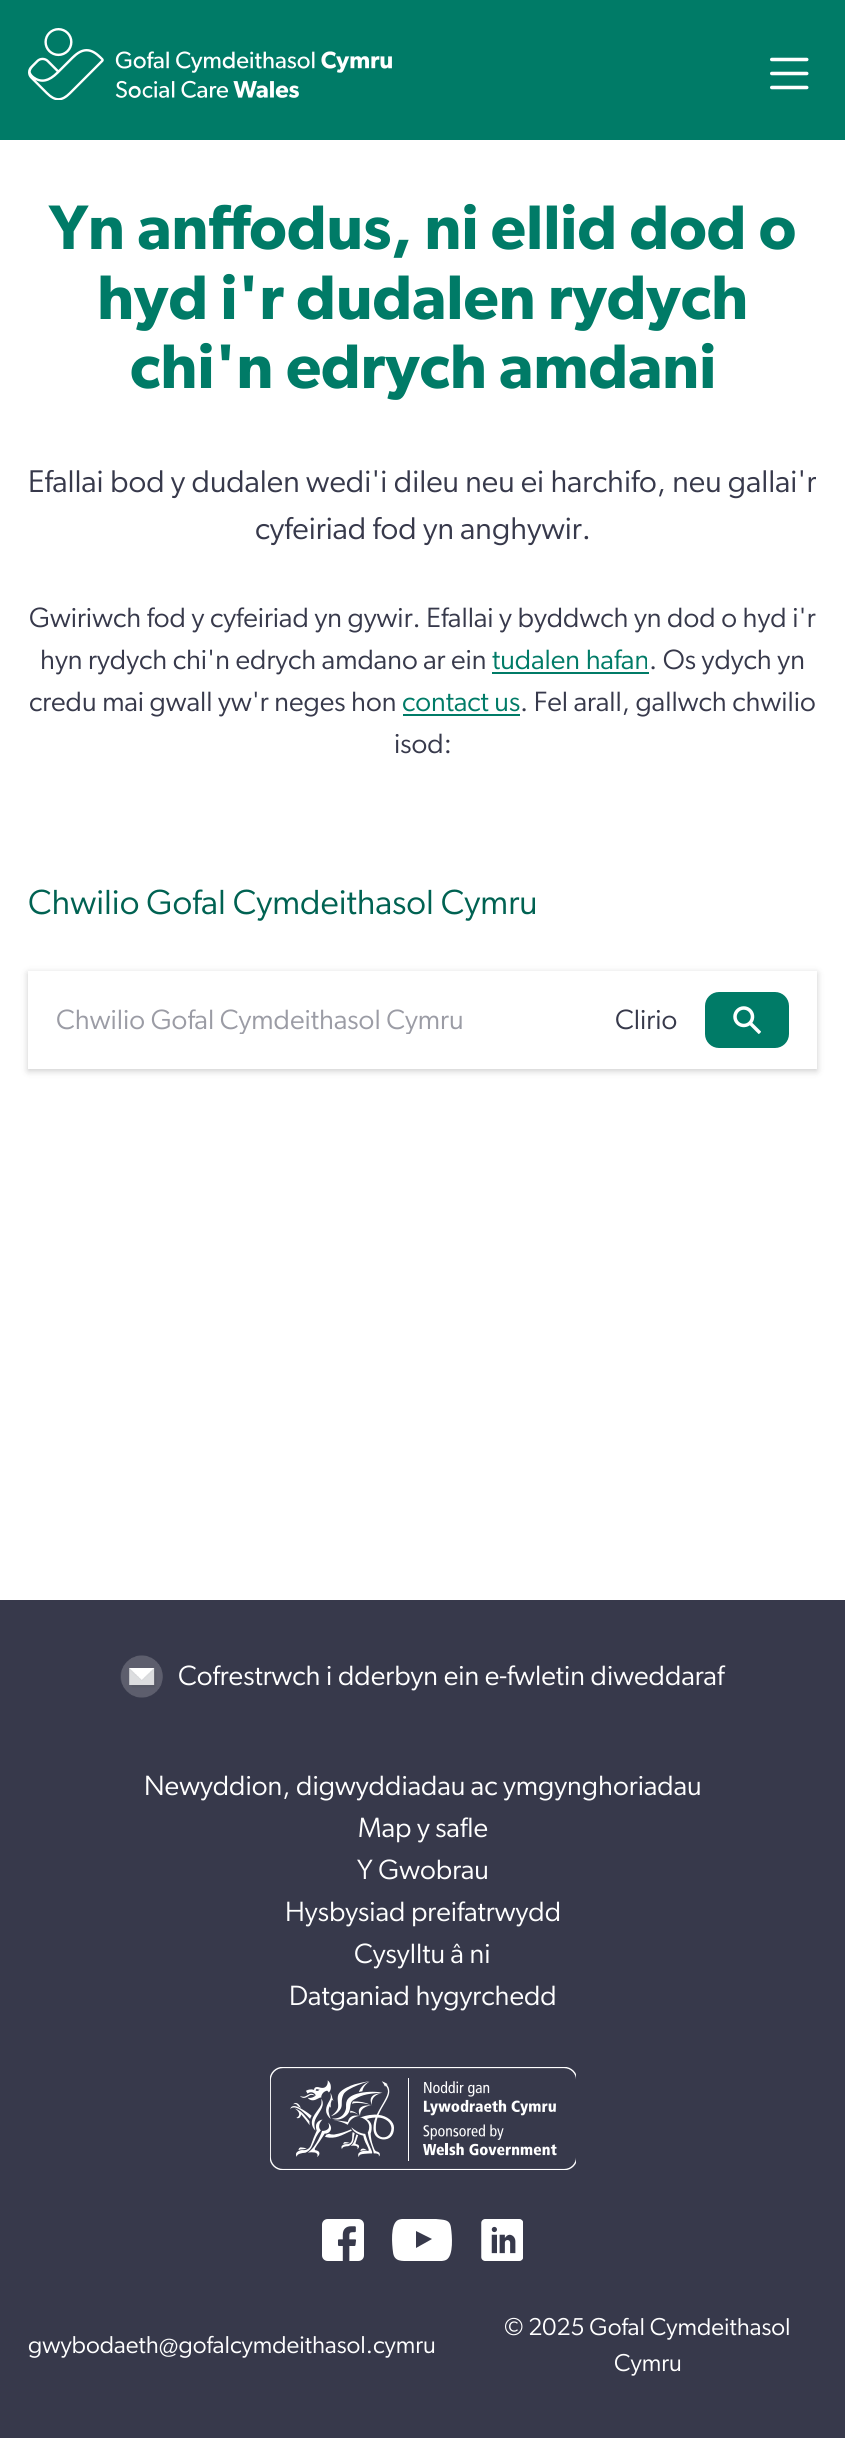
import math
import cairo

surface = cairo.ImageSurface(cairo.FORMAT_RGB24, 845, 2438)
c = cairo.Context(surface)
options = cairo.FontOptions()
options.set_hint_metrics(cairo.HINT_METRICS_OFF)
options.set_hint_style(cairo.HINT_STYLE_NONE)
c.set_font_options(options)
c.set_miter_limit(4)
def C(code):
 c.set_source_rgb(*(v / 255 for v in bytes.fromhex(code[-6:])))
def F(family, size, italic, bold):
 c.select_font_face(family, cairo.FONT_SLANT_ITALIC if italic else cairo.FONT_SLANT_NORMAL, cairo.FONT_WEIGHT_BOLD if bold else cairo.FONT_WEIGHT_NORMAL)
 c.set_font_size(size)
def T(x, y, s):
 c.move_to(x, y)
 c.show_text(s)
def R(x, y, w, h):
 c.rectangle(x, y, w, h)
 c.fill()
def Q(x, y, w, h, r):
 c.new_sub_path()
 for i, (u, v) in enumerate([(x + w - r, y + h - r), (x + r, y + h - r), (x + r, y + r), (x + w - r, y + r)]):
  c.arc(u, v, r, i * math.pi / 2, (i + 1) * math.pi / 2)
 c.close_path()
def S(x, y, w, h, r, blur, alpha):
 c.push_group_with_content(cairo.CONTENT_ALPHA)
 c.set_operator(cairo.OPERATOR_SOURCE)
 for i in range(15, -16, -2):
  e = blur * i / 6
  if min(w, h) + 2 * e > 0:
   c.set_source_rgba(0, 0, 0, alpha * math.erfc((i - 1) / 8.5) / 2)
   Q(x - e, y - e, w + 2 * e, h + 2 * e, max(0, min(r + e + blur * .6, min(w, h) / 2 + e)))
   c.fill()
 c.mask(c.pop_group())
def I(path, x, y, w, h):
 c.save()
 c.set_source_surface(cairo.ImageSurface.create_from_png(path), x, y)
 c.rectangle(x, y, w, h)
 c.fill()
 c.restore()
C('ffffff')
c.paint()
C('007b67')
R(0,0,845,140)
I('1.png',28,28,364,72)
I('2.png',770,57,39,33)
F('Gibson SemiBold',63,0,0)
T(49,249,'Yn anffodus, ni ellid dod o')
T(97,319,'hyd i\'r dudalen rydych')
T(130,388,'chi\'n edrych amdani')
F('Gibson',31.5,0,0)
C('37394b')
T(28,492,'Efallai bod y dudalen wedi\'i dileu neu ei harchifo, neu gallai\'r')
T(255,539,'cyfeiriad fod yn anghywir.')
F('Gibson',28,0,0)
T(29,627,'Gwiriwch fod y cyfeiriad yn gywir. Efallai y byddwch yn dod o hyd i\'r')
T(40,669,'hyn rydych chi\'n edrych amdano ar ein')
C('007b67')
T(492,669,'tudalen hafan')
R(492,672,157,2)
C('37394b')
T(649,669,'. Os ydych yn')
T(29,711,'credu mai gwall yw\'r neges hon')
C('007b67')
T(402,711,'contact us')
R(403,714,117,2)
C('37394b')
T(520,711,'. Fel arall, gallwch chwilio')
T(394,753,'isod:')
F('Gibson',35,0,0)
C('006252')
T(28,914,'Chwilio Gofal Cymdeithasol Cymru')
C('000000')
S(28,973,789,98,0,3.5,.2)
C('ffffff')
R(28,971,789,98)
c.save()
c.rectangle(56,1006,530,28)
c.clip()
F('Gibson',28,0,0)
C('9b9ca5')
T(56,1029,'Chwilio Gofal Cymdeithasol Cymru')
c.restore()
F('Gibson',28,0,0)
C('37394b')
T(615,1029,'Clirio')
C('007b67')
Q(705,992,84,56,14)
c.fill()
I('3.png',733,1006,28,28)
C('37394b')
R(0,1600,845,838)
I('4.png',120,1655,43,43)
C('ffffff')
T(178,1685,'Cofrestrwch i dderbyn ein e-fwletin diweddaraf')
T(144,1795,'Newyddion, digwyddiadau ac ymgynghoriadau')
T(358,1837,'Map y safle')
T(357,1879,'Y Gwobrau')
T(285,1921,'Hysbysiad preifatrwydd')
T(354,1963,'Cysylltu â ni')
T(289,2005,'Datganiad hygyrchedd')
I('5.png',270,2067,306,103)
I('6.png',322,2219,42,42)
c.save()
c.rectangle(392,2219,61,42)
c.clip()
c.new_path()
c.move_to(451,2228)
c.curve_to(450,2219,444,2220,436,2219)
c.line_to(417,2219)
c.curve_to(412,2219,402,2218,398,2220)
c.curve_to(390,2224,392,2245,393,2252)
c.curve_to(394,2262,402,2261,410,2261)
c.line_to(426,2261)
c.curve_to(431,2261,442,2262,446,2260)
c.curve_to(454,2256,452,2235,451,2228)
c.close_path()
c.move_to(416,2248)
c.line_to(416,2231)
c.line_to(432,2239)
c.close_path()
c.fill()
c.restore()
I('7.png',481,2219,42,42)
F('Gibson',24.5,0,0)
T(28,2353,'gwybodaeth@gofalcymdeithasol.cymru')
T(504,2335,'© 2025 Gofal Cymdeithasol')
T(614,2371,'Cymru')
surface.write_to_png('o.png')
